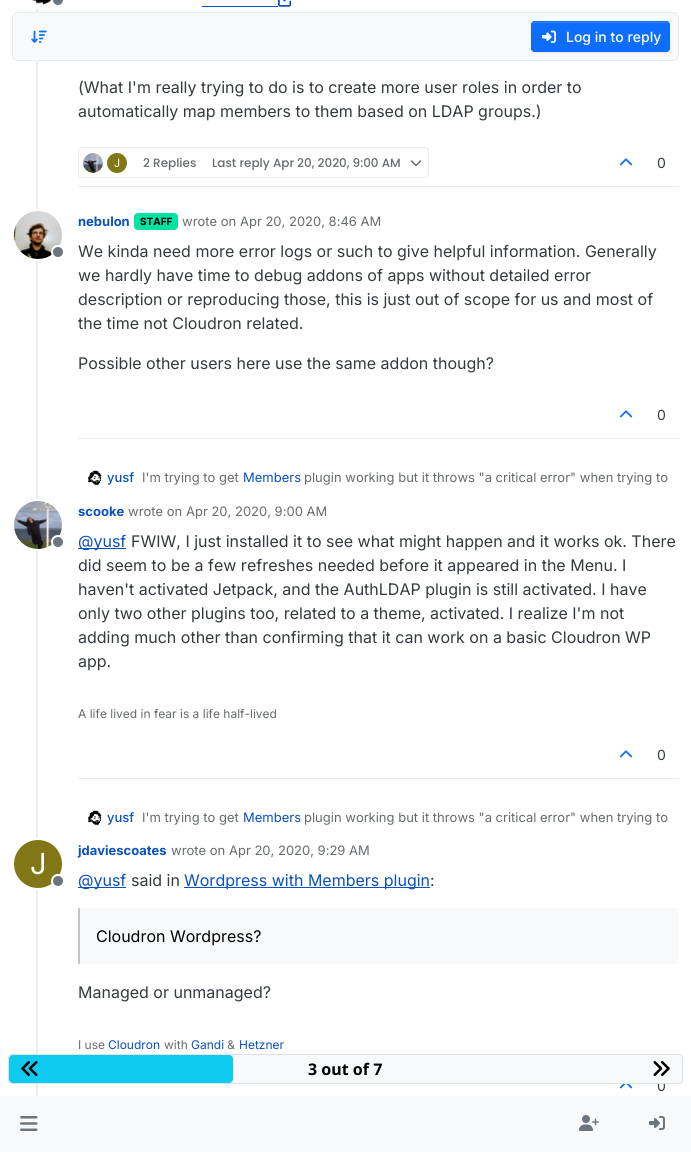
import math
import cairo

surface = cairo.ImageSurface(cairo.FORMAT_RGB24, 691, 1152)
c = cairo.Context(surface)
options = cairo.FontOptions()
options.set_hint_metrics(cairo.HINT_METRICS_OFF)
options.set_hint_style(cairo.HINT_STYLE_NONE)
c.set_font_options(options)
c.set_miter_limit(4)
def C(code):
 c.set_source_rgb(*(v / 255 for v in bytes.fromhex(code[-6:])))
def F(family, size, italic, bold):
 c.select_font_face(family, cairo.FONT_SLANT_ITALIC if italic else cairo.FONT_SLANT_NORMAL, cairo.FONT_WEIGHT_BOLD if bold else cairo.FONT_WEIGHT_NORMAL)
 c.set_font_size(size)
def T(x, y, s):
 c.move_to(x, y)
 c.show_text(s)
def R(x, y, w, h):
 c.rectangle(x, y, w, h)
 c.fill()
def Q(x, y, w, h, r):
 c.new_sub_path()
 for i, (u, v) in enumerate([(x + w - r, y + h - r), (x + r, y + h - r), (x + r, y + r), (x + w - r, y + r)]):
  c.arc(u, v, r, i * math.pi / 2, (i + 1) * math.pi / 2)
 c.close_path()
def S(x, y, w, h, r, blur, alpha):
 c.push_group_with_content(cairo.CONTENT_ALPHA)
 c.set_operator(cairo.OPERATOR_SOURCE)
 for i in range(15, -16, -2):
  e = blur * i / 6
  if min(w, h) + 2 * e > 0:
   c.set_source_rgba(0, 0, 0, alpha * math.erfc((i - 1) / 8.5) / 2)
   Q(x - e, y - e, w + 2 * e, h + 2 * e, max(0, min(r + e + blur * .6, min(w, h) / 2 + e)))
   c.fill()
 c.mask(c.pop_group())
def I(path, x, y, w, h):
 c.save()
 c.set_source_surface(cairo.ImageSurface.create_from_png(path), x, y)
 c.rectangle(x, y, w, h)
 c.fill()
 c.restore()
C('ffffff')
c.paint()
C('e9ecef')
R(36,0,2,1096)
C('f8f9fa')
Q(12.5,12.5,666,48,5.5)
c.fill_preserve()
C('e9ecef')
c.set_line_width(1)
c.stroke()
I('1.png',31,30,16,13)
C('000000')
S(531,22,139,31,4,.5,.07)
C('0d6efd')
Q(531,21,139,31,4)
c.fill()
C('3184fd')
c.new_path()
c.move_to(535,23)
c.line_to(666,23)
c.curve_to(668,23,669,24,669,26)
c.curve_to(669,24,669,22,667,22)
c.line_to(534,22)
c.curve_to(532,22,532,24,532,26)
c.curve_to(532,24,533,23,535,23)
c.close_path()
c.fill()
Q(531.5,21.5,138,30,3.5)
C('0d6efd')
c.stroke()
I('2.png',542,30,14,13)
F('Inter Medium',14,0,0)
C('ffffff')
T(566,42,'Log in to reply')
Q(14,-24,48,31,24)
c.fill()
Q(13,-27,50,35,25)
c.set_line_width(2)
c.stroke()
I('3.png',32,0,20,5)
C('6c757d')
c.arc(58,0,6,0,2 * math.pi)
c.fill_preserve()
C('ffffff')
c.stroke()
C('0951be')
R(202,6,76,1)
I('4.png',278,0,14,7)
F('Inter',16,0,0)
C('343a40')
T(78,93,'(What I\'m really trying to do is to create more user roles in order to')
T(78,117,'automatically map members to them based on LDAP groups.)')
C('e9ecef')
R(78,186,601,1)
Q(78.5,147.5,350,30,3.5)
c.set_line_width(1)
c.stroke()
I('5.png',83,153,20,20)
C('827717')
c.arc(117,163,10,0,2 * math.pi)
c.fill()
F('Poppins',12,0,0)
C('ffffff')
T(114,167,'J')
F('Poppins Medium',12,0,0)
C('676b70')
T(143,167,'2 Replies')
T(212,167,'Last reply Apr 20, 2020, 9:00 AM')
I('6.png',410,160,12,7)
I('7.png',619,158,14,8)
F('Inter',14,0,0)
C('343a40')
T(657,168,'0')
c.new_path()
c.arc(38,235,25,0,2 * math.pi)
C('ffffff')
c.set_line_width(2)
c.stroke()
I('8.png',14,211,48,48)
C('6c757d')
c.arc(58,252,6,0,2 * math.pi)
c.fill_preserve()
C('ffffff')
c.stroke()
F('Inter',13,0,1)
C('0951be')
T(78,226,'nebulon')
C('00e3a3')
Q(134,213,44,17,4)
c.fill()
F('Inter',10,0,1)
C('000000')
T(140,225,'STAFF')
F('Inter',13,0,0)
C('676b70')
T(182,226,'wrote on Apr 20, 2020, 8:46 AM')
F('Inter',16,0,0)
C('343a40')
T(78,257,'We kinda need more error logs or such to give helpful information. Generally')
T(78,281,'we hardly have time to debug addons of apps without detailed error')
T(78,305,'description or reproducing those, this is just out of scope for us and most of')
T(78,329,'the time not Cloudron related.')
T(78,369,'Possible other users here use the same addon though?')
C('e9ecef')
R(78,438,601,1)
I('7.png',619,410,14,8)
F('Inter',14,0,0)
C('343a40')
T(657,420,'0')
I('9.png',88,470,14,16)
F('Inter Medium',13,0,0)
C('0951be')
T(107,482,'yusf')
F('Inter',13,0,0)
C('676b70')
T(142,482,'I\'m trying to get')
C('0951be')
T(243,482,'Members')
C('676b70')
T(304,482,'plugin working but it throws "a critical error" when trying to')
c.new_path()
c.arc(38,525,25,0,2 * math.pi)
C('ffffff')
c.stroke()
I('10.png',14,501,48,48)
C('6c757d')
c.arc(58,542,6,0,2 * math.pi)
c.fill_preserve()
C('ffffff')
c.stroke()
F('Inter',13,0,1)
C('0951be')
T(78,516,'scooke')
F('Inter',13,0,0)
C('676b70')
T(128,516,'wrote on Apr 20, 2020, 9:00 AM')
C('0951be')
R(78,548,48,1)
F('Inter',16,0,0)
T(78,547,'@yusf')
C('343a40')
T(131,547,'FWIW, I just installed it to see what might happen and it works ok. There')
T(78,571,'did seem to be a few refreshes needed before it appeared in the Menu. I')
T(78,595,'haven\'t activated Jetpack, and the AuthLDAP plugin is still activated. I have')
T(78,619,'only two other plugins too, related to a theme, activated. I realize I\'m not')
T(78,643,'adding much other than confirming that it can work on a basic Cloudron WP')
T(78,667,'app.')
C('e9ecef')
R(78,778,601,1)
F('Inter',12,0,0)
C('676b70')
T(78,718,'A life lived in fear is a life half-lived')
I('7.png',619,750,14,8)
F('Inter',14,0,0)
C('343a40')
T(657,760,'0')
I('9.png',88,810,14,16)
F('Inter Medium',13,0,0)
C('0951be')
T(107,822,'yusf')
F('Inter',13,0,0)
C('676b70')
T(142,822,'I\'m trying to get')
C('0951be')
T(243,822,'Members')
C('676b70')
T(304,822,'plugin working but it throws "a critical error" when trying to')
c.new_path()
c.arc(38,864,25,0,2 * math.pi)
C('ffffff')
c.stroke()
C('827717')
c.arc(38,864,24,0,2 * math.pi)
c.fill()
F('Inter',29,0,0)
C('ffffff')
T(30,874,'J')
C('6c757d')
c.new_path()
c.arc(58,881,6,0,2 * math.pi)
c.fill_preserve()
C('ffffff')
c.stroke()
F('Inter',13,0,1)
C('0951be')
T(78,855,'jdaviescoates')
F('Inter',13,0,0)
C('676b70')
T(171,855,'wrote on Apr 20, 2020, 9:29 AM')
C('0951be')
R(78,887,48,1)
F('Inter',16,0,0)
T(78,886,'@yusf')
C('343a40')
T(131,886,'said in')
C('0951be')
R(184,887,246,1)
T(184,886,'Wordpress with Members plugin')
C('343a40')
T(430,886,':')
C('f8f9fa')
R(80,908,599,56)
C('c2c4c6')
R(78,908,2,56)
C('000000')
T(96,942,'Cloudron Wordpress?')
C('343a40')
T(78,998,'Managed or unmanaged?')
F('Inter',12,0,0)
C('676b70')
T(78,1049,'I use')
C('0951be')
T(108,1049,'Cloudron')
C('676b70')
T(164,1049,'with')
C('0951be')
T(191,1049,'Gandi')
C('676b70')
T(227,1049,'&')
C('0951be')
T(239,1049,'Hetzner')
I('11.png',619,1084,14,5)
F('Inter',14,0,0)
C('343a40')
T(657,1091,'0')
C('f8f9fa')
Q(8.5,1054.5,674,29,3.5)
c.fill_preserve()
C('dee2e6')
c.set_line_width(1)
c.stroke()
C('0dcaf0')
Q(9,1055,224,28,4)
c.fill()
I('12.png',21,1061,17,15)
F('Noto Sans',16,0,1)
C('000000')
T(308,1075,'3 out of 7')
I('13.png',653,1061,17,15)
C('f8f9fa')
R(0,1096,691,56)
I('14.png',20,1116,18,15)
I('15.png',579,1115,20,16)
I('16.png',649,1116,16,14)
surface.write_to_png('o.png')
